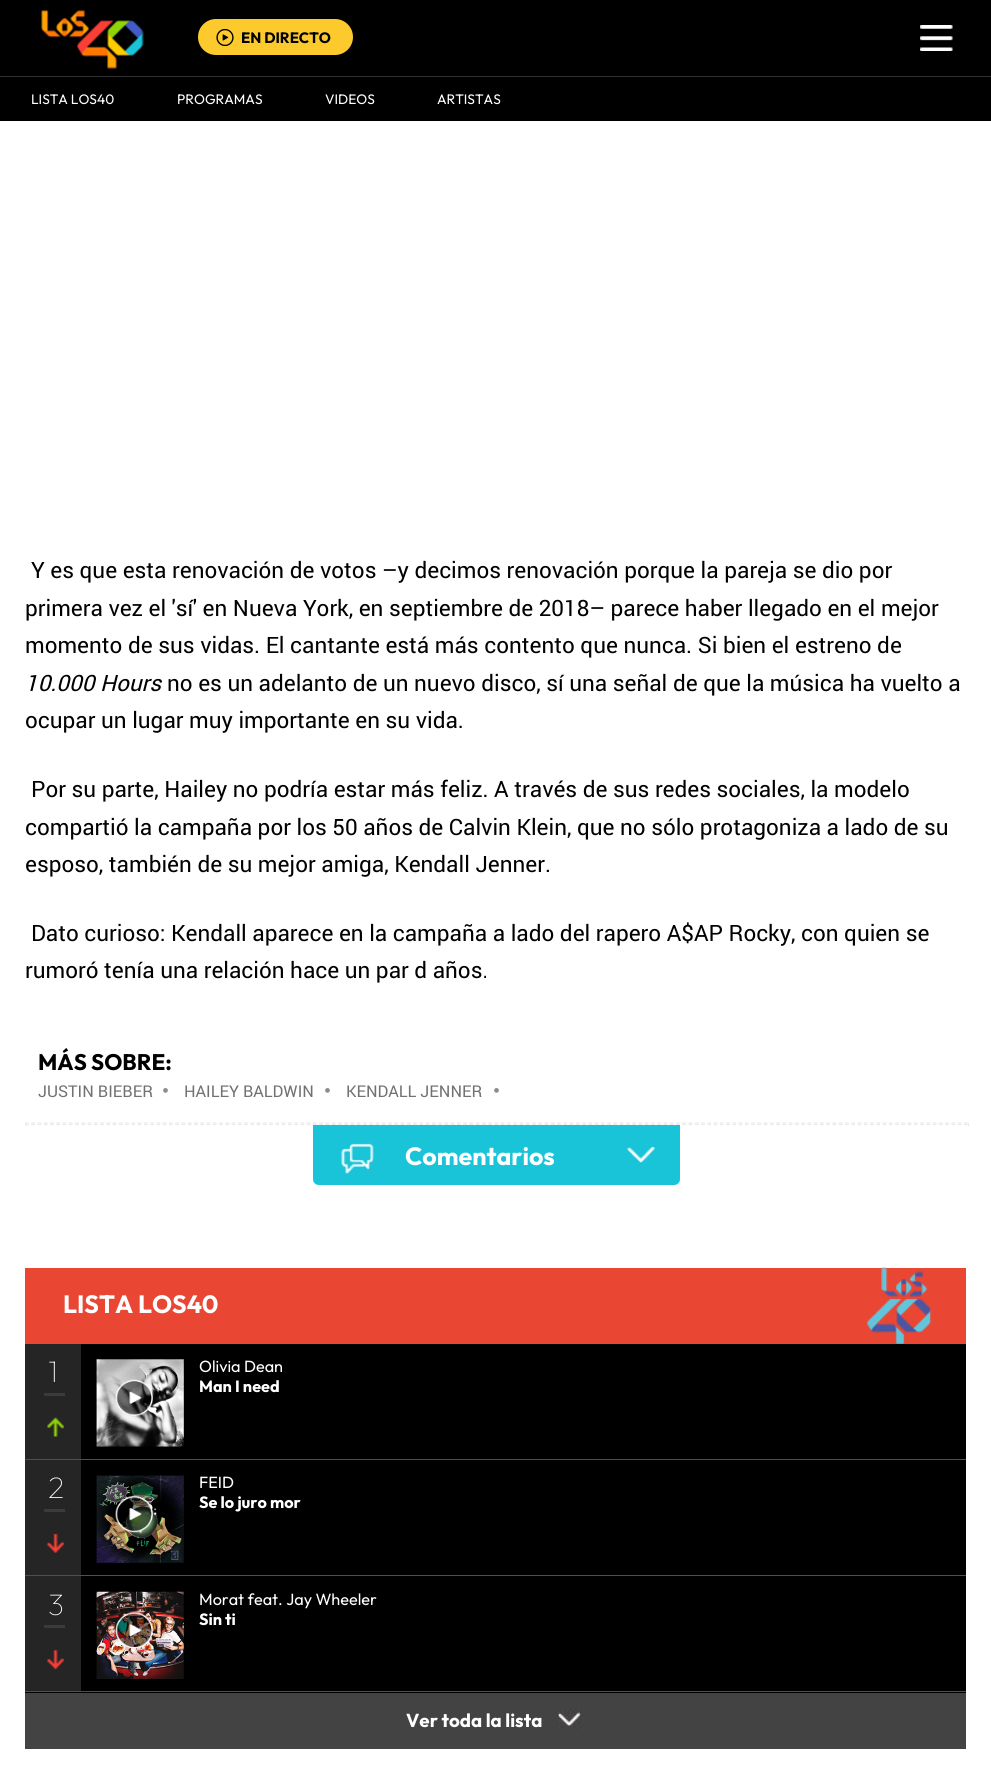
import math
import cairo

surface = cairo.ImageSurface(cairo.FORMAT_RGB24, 991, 1774)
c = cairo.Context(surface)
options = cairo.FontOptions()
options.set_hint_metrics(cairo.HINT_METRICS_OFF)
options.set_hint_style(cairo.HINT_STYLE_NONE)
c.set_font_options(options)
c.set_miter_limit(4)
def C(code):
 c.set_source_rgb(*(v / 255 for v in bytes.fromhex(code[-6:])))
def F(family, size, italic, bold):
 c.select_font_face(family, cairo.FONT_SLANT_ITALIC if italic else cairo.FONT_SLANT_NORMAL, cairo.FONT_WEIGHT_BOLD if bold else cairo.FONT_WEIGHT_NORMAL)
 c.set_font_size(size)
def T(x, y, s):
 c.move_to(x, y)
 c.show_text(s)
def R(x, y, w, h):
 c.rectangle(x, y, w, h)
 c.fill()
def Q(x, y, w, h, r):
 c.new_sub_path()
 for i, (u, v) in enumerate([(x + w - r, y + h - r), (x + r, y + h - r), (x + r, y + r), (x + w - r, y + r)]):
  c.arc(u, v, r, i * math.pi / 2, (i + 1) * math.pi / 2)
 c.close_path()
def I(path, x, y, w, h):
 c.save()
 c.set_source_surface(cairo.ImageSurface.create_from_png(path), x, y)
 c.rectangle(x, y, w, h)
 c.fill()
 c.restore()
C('ffffff')
c.paint()
C('000000')
R(0,0,991,121)
C('313131')
R(0,76,991,1)
I('1.png',41,10,103,59)
C('fdca2e')
Q(198,19,155,36,18)
c.fill()
I('2.png',216,29,18,17)
F('Outfit',15,0,1)
C('000000')
T(241,43,'EN DIRECTO')
I('3.png',920,25,33,26)
F('Outfit',13.75,0,0)
C('ffffff')
T(31,104,'LISTA LOS40')
T(177,104,'PROGRAMAS')
T(325,104,'VIDEOS')
T(437,104,'ARTISTAS')
F('Roboto',22.5,0,0)
C('000000')
T(31,578,'Y es que esta renovación de votos –y decimos renovación porque la pareja se dio por')
T(25,616,'primera vez el \'sí\' en Nueva York, en septiembre de 2018– parece haber llegado en el mejor')
T(25,653,'momento de sus vidas. El cantante está más contento que nunca. Si bien el estreno de')
F('Roboto',22.5,1,0)
T(25,691,'10.000 Hours')
F('Roboto',22.5,0,0)
T(167,691,'no es un adelanto de un nuevo disco, sí una señal de que la música ha vuelto a')
T(25,728,'ocupar un lugar muy importante en su vida.')
T(31,797,'Por su parte, Hailey no podría estar más feliz. A través de sus redes sociales, la modelo')
T(25,835,'compartió la campaña por los 50 años de Calvin Klein, que no sólo protagoniza a lado de su')
T(25,872,'esposo, también de su mejor amiga, Kendall Jenner.')
T(31,941,'Dato curioso: Kendall aparece en la campaña a lado del rapero A$AP Rocky, con quien se')
T(25,978,'rumoró tenía una relación hace un par d años.')
F('Outfit',22.5,0,1)
T(38,1070,'MÁS SOBRE:')
F('Roboto',16.25,0,0)
C('717171')
T(38,1097,'JUSTIN BIEBER')
F('Liberation Serif',20,0,0)
C('8c8c8c')
T(162,1097,'•')
F('Roboto',16.25,0,0)
C('717171')
T(184,1097,'HAILEY BALDWIN')
F('Liberation Serif',20,0,0)
C('8c8c8c')
T(324,1097,'•')
F('Roboto',16.25,0,0)
C('717171')
T(346,1097,'KENDALL JENNER')
F('Liberation Serif',20,0,0)
C('8c8c8c')
T(493,1097,'•')
c.new_path()
c.move_to(25,1123)
c.line_to(969,1123)
C('ebe9e9')
c.set_line_width(1.2)
c.set_dash([3.75,2.51])
c.stroke()
R(968,1123,1,3)
c.new_path()
c.move_to(25,1124.5)
c.line_to(969,1124.5)
c.stroke()
R(25,1123,1,3)
C('1ac4d8')
c.new_path()
c.move_to(313,1125)
c.line_to(680,1125)
c.line_to(680,1179)
c.curve_to(680,1182.5,677.5,1185,674,1185)
c.line_to(319,1185)
c.curve_to(315.5,1185,313,1182.5,313,1179)
c.close_path()
c.fill()
I('4.png',341,1143,33,32)
F('Outfit',25,0,1)
C('ffffff')
T(405,1165,'Comentarios')
I('5.png',626,1147,29,16)
C('000000')
R(25,1344,941,349)
C('e94633')
R(25,1268,941,76)
C('ffffff')
T(63,1313,'LISTA LOS40')
I('6.png',866,1267,66,77)
C('505050')
R(25,1459,941,1)
C('252525')
R(25,1344,56,115)
F('Outfit Thin',30,0,0)
C('ffffff')
T(48,1382,'1')
C('3b3b3b')
R(44,1393,21,3)
I('7.png',47,1417,17,20)
I('8.png',96,1359,88,88)
I('9.png',115,1379,38,37)
F('Outfit',16.25,0,0)
C('ffffff')
T(199,1372,'Olivia Dean')
F('Outfit',16.25,0,1)
T(199,1392,'Man I need')
C('505050')
R(25,1575,941,1)
C('252525')
R(25,1460,56,115)
F('Outfit Thin',30,0,0)
C('ffffff')
T(48,1498,'2')
C('3b3b3b')
R(44,1509,21,3)
I('10.png',47,1533,17,20)
I('11.png',96,1475,88,88)
I('12.png',115,1495,38,38)
F('Outfit',16.25,0,0)
C('ffffff')
T(199,1488,'FEID')
F('Outfit',16.25,0,1)
T(199,1508,'Se lo juro mor')
C('505050')
R(25,1691,941,1)
C('252525')
R(25,1576,56,115)
F('Outfit Thin',30,0,0)
C('ffffff')
T(48,1615,'3')
C('3b3b3b')
R(44,1625,21,3)
I('13.png',47,1650,17,20)
I('14.png',96,1591,88,88)
I('15.png',115,1612,39,37)
F('Outfit',16.25,0,0)
C('ffffff')
T(199,1605,'Morat feat. Jay Wheeler')
F('Outfit',16.25,0,1)
T(199,1625,'Sin ti')
C('444343')
R(25,1693,941,56)
F('Outfit',18.75,0,1)
C('ffffff')
T(406,1727,'Ver toda la lista')
I('16.png',555,1709,30,20)
surface.write_to_png('o.png')
